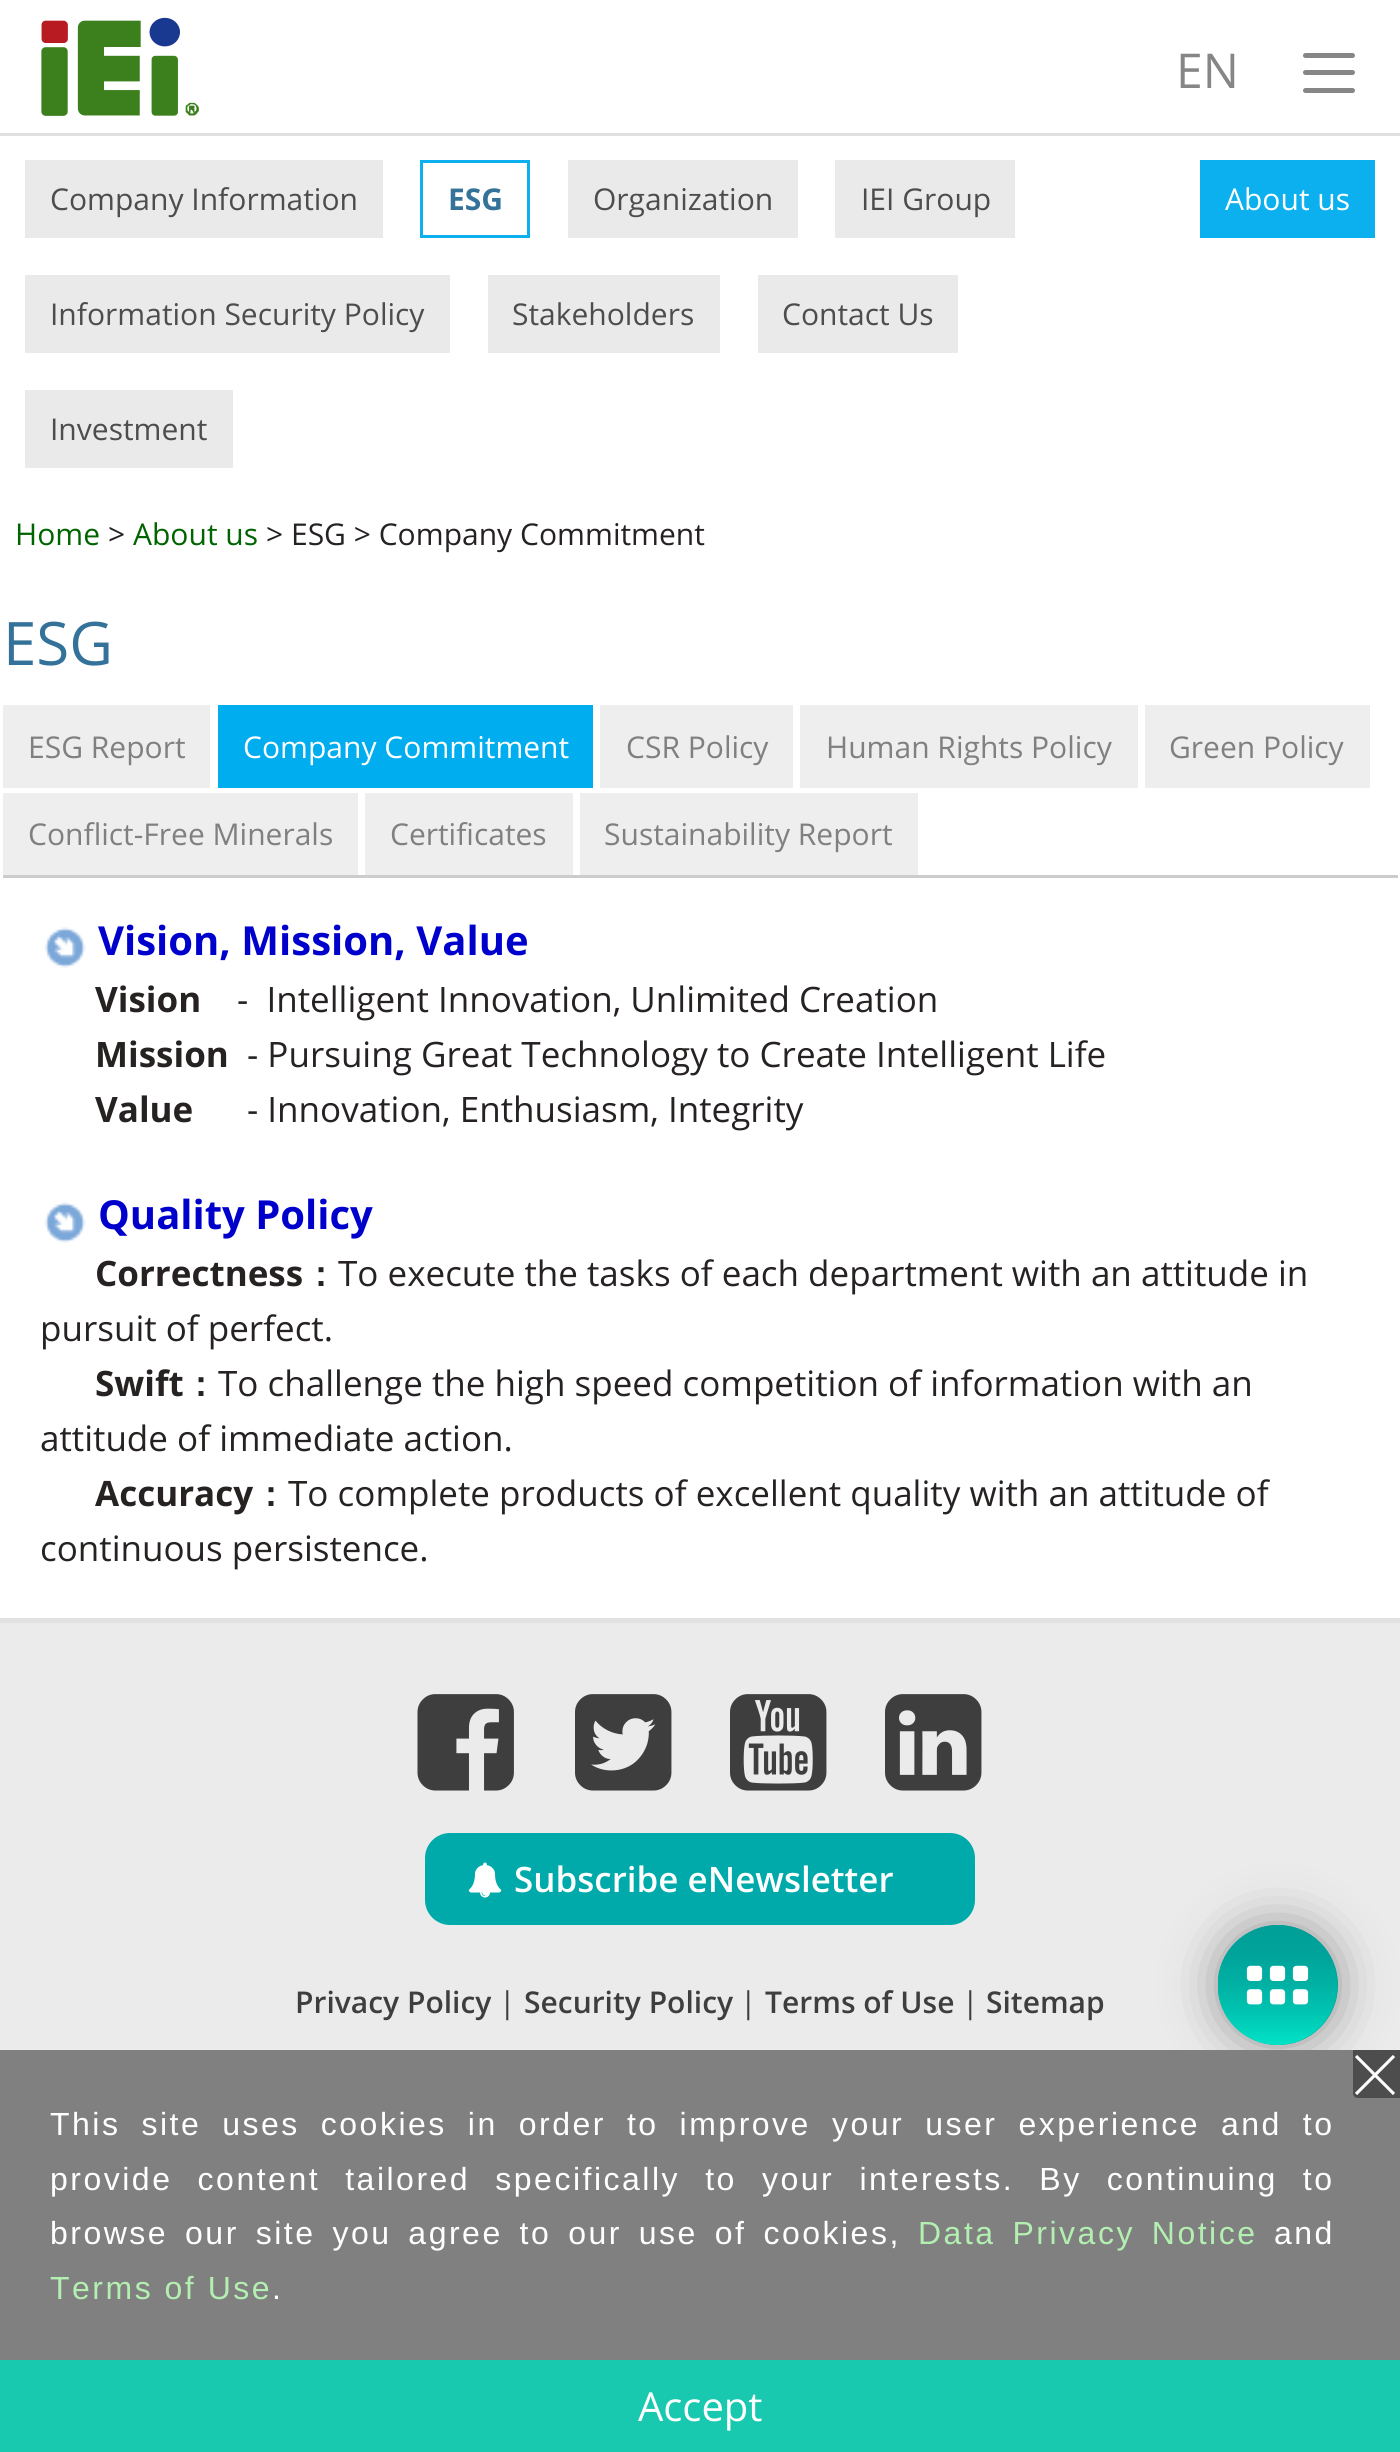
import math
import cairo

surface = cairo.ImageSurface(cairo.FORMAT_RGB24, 1400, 2452)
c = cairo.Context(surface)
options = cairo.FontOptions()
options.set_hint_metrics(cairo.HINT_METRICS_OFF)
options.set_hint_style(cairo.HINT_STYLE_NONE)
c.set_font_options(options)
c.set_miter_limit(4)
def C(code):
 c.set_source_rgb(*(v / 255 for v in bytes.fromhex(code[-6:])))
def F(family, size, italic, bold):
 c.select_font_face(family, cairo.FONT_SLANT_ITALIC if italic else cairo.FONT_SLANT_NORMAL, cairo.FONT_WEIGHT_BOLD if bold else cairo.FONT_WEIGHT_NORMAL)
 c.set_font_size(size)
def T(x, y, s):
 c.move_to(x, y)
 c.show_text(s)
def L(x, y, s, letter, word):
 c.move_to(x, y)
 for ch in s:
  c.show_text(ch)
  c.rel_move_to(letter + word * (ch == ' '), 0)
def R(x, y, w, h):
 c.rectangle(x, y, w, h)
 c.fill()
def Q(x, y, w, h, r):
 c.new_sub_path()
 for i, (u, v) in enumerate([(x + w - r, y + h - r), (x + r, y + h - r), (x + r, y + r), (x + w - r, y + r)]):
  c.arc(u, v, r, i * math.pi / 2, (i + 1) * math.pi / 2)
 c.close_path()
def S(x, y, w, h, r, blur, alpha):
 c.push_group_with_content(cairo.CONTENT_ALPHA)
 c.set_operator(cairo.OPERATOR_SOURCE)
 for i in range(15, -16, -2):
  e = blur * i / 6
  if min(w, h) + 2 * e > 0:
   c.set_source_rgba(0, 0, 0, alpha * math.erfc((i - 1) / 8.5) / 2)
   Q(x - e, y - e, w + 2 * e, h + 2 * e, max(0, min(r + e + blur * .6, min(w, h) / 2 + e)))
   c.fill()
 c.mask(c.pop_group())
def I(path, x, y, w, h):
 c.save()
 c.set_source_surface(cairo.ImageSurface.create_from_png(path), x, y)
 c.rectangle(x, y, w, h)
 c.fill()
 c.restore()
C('ffffff')
c.paint()
C('e0e0e0')
R(0,133,1400,3)
I('1.png',41,17,158,99)
F('Open Sans',48,0,0)
C('868686')
T(1176,88,'EN')
Q(1303,53,52,5,2.5)
c.fill()
Q(1303,70,52,5,2.5)
c.fill()
Q(1303,88,52,5,2.5)
c.fill()
C('eaeaea')
R(25,160,358,78)
F('Open Sans',30,0,0)
C('4d4d4d')
T(50,210,'Company Information')
c.rectangle(421.5,161.5,107,75)
C('0cb0ef')
c.set_line_width(3)
c.stroke()
F('Open Sans',30,0,1)
C('347299')
T(448,210,'ESG')
C('eaeaea')
R(568,160,230,78)
F('Open Sans',30,0,0)
C('4d4d4d')
T(593,210,'Organization')
C('eaeaea')
R(835,160,180,78)
C('4d4d4d')
T(861,210,'IEI Group')
C('eaeaea')
R(25,275,425,78)
C('4d4d4d')
T(50,325,'Information Security Policy')
C('eaeaea')
R(488,275,232,78)
C('4d4d4d')
T(512,325,'Stakeholders')
C('eaeaea')
R(758,275,200,78)
C('4d4d4d')
T(782,325,'Contact Us')
C('eaeaea')
R(25,390,208,78)
C('4d4d4d')
T(50,440,'Investment')
C('0cb0ef')
R(1200,160,175,78)
C('ffffff')
T(1225,210,'About us')
C('006400')
T(15,545,'Home')
C('262222')
T(108,545,'>')
C('006400')
T(133,545,'About us')
C('262222')
T(266,545,'> ESG > Company Commitment')
F('Open Sans',60,0,0)
C('347299')
T(3,665,'ESG')
C('cccccc')
R(3,875,1395,3)
C('eeeeee')
R(3,705,207,83)
F('Open Sans',30,0,0)
C('808080')
T(28,758,'ESG Report')
C('00adef')
R(218,705,375,83)
C('ffffff')
T(243,758,'Company Commitment')
C('eeeeee')
R(600,705,193,83)
C('808080')
T(626,758,'CSR Policy')
C('eeeeee')
R(800,705,338,83)
C('808080')
T(826,758,'Human Rights Policy')
C('eeeeee')
R(1145,705,225,83)
C('808080')
T(1169,758,'Green Policy')
C('eeeeee')
R(3,793,355,82)
C('808080')
T(28,845,'Conflict-Free Minerals')
C('eeeeee')
R(365,793,208,82)
C('808080')
T(390,845,'Certificates')
C('eeeeee')
R(580,793,338,82)
C('808080')
T(604,845,'Sustainability Report')
I('2.png',44,927,42,41)
F('Open Sans',40,0,1)
C('0000cd')
T(98,955,'Vision, Mission, Value')
F('Open Sans',35,0,1)
C('262222')
T(95,1012,'Vision')
F('Open Sans',35,0,0)
T(237,1012,'-  Intelligent Innovation, Unlimited Creation')
F('Open Sans',35,0,1)
T(95,1067,'Mission')
F('Open Sans',35,0,0)
T(247,1067,'- Pursuing Great Technology to Create Intelligent Life')
F('Open Sans',35,0,1)
T(95,1122,'Value')
F('Open Sans',35,0,0)
T(247,1122,'- Innovation, Enthusiasm, Integrity')
I('2.png',44,1202,42,41)
F('Open Sans',40,0,1)
C('0000cd')
T(98,1229,'Quality Policy')
F('Open Sans',35,0,1)
C('262222')
T(95,1286,'Correctness')
F('WenQuanYi Zen Hei',35,0,1)
T(303,1286,'：')
F('Open Sans',35,0,0)
T(338,1286,'To execute the tasks of each department with an attitude in')
T(40,1341,'pursuit of perfect.')
F('Open Sans',35,0,1)
T(95,1396,'Swift')
F('WenQuanYi Zen Hei',35,0,1)
T(183,1396,'：')
F('Open Sans',35,0,0)
T(218,1396,'To challenge the high speed competition of information with an')
T(40,1451,'attitude of immediate action.')
F('Open Sans',35,0,1)
T(95,1506,'Accuracy')
F('WenQuanYi Zen Hei',35,0,1)
T(253,1506,'：')
F('Open Sans',35,0,0)
T(288,1506,'To complete products of excellent quality with an attitude of')
T(40,1561,'continuous persistence.')
C('ebebeb')
R(0,1623,1400,427)
C('e1e1e1')
R(0,1618,1400,5)
I('3.png',417,1694,97,97)
I('4.png',575,1694,97,97)
I('5.png',730,1694,97,97)
I('6.png',885,1694,97,97)
C('00aaaa')
Q(425,1833,550,92,25)
c.fill()
I('7.png',468,1862,34,36)
F('Open Sans SemiBold',35,0,0)
C('ffffff')
T(514,1892,'Subscribe eNewsletter')
F('Open Sans SemiBold',30,0,0)
C('3e3e3e')
T(295,2013,'Privacy Policy')
F('Open Sans',30,0,0)
T(499,2013,'|')
F('Open Sans SemiBold',30,0,0)
T(524,2013,'Security Policy')
F('Open Sans',30,0,0)
T(740,2013,'|')
F('Open Sans SemiBold',30,0,0)
T(765,2013,'Terms of Use')
F('Open Sans',30,0,0)
T(962,2013,'|')
F('Open Sans SemiBold',30,0,0)
T(986,2013,'Sitemap')
C('808080')
S(1218,1925,120,120,60,25,.8)
C('009f97')
c.arc(1278,1985,60,0,2 * math.pi)
c.fill()
I('8.png',1218,1925,120,120)
C('808080')
R(0,2050,1400,310)
C('4d4d4d')
c.new_path()
c.move_to(1353,2050)
c.line_to(1400,2050)
c.line_to(1400,2098)
c.line_to(1358,2098)
c.curve_to(1355,2098,1353,2096,1353,2093)
c.close_path()
c.fill()
c.new_path()
c.move_to(1356,2056)
c.line_to(1394,2094)
c.move_to(1394,2056)
c.line_to(1356,2094)
C('ffffff')
c.set_line_width(3.1)
c.stroke()
F('Liberation Sans',32,0,0)
L(50,2135,'This site uses cookies in order to improve your user experience and to',2.5,9.6)
L(50,2190,'provide content tailored specifically to your interests. By continuing to',2.5,13.75)
L(50,2244,'browse our site you agree to our use of cookies,',2.5,5.5)
C('b3efb0')
L(918,2244,'Data Privacy Notice',2.5,5.5)
C('ffffff')
L(1274,2244,'and',2.5,0)
C('b3efb0')
L(50,2299,'Terms of Use',2.5,0)
C('ffffff')
L(272,2299,'.',2.5,0)
C('18c8af')
R(0,2360,1400,92)
F('Open Sans',40,0,0)
C('ffffff')
T(638,2421,'Accept')
surface.write_to_png('o.png')
